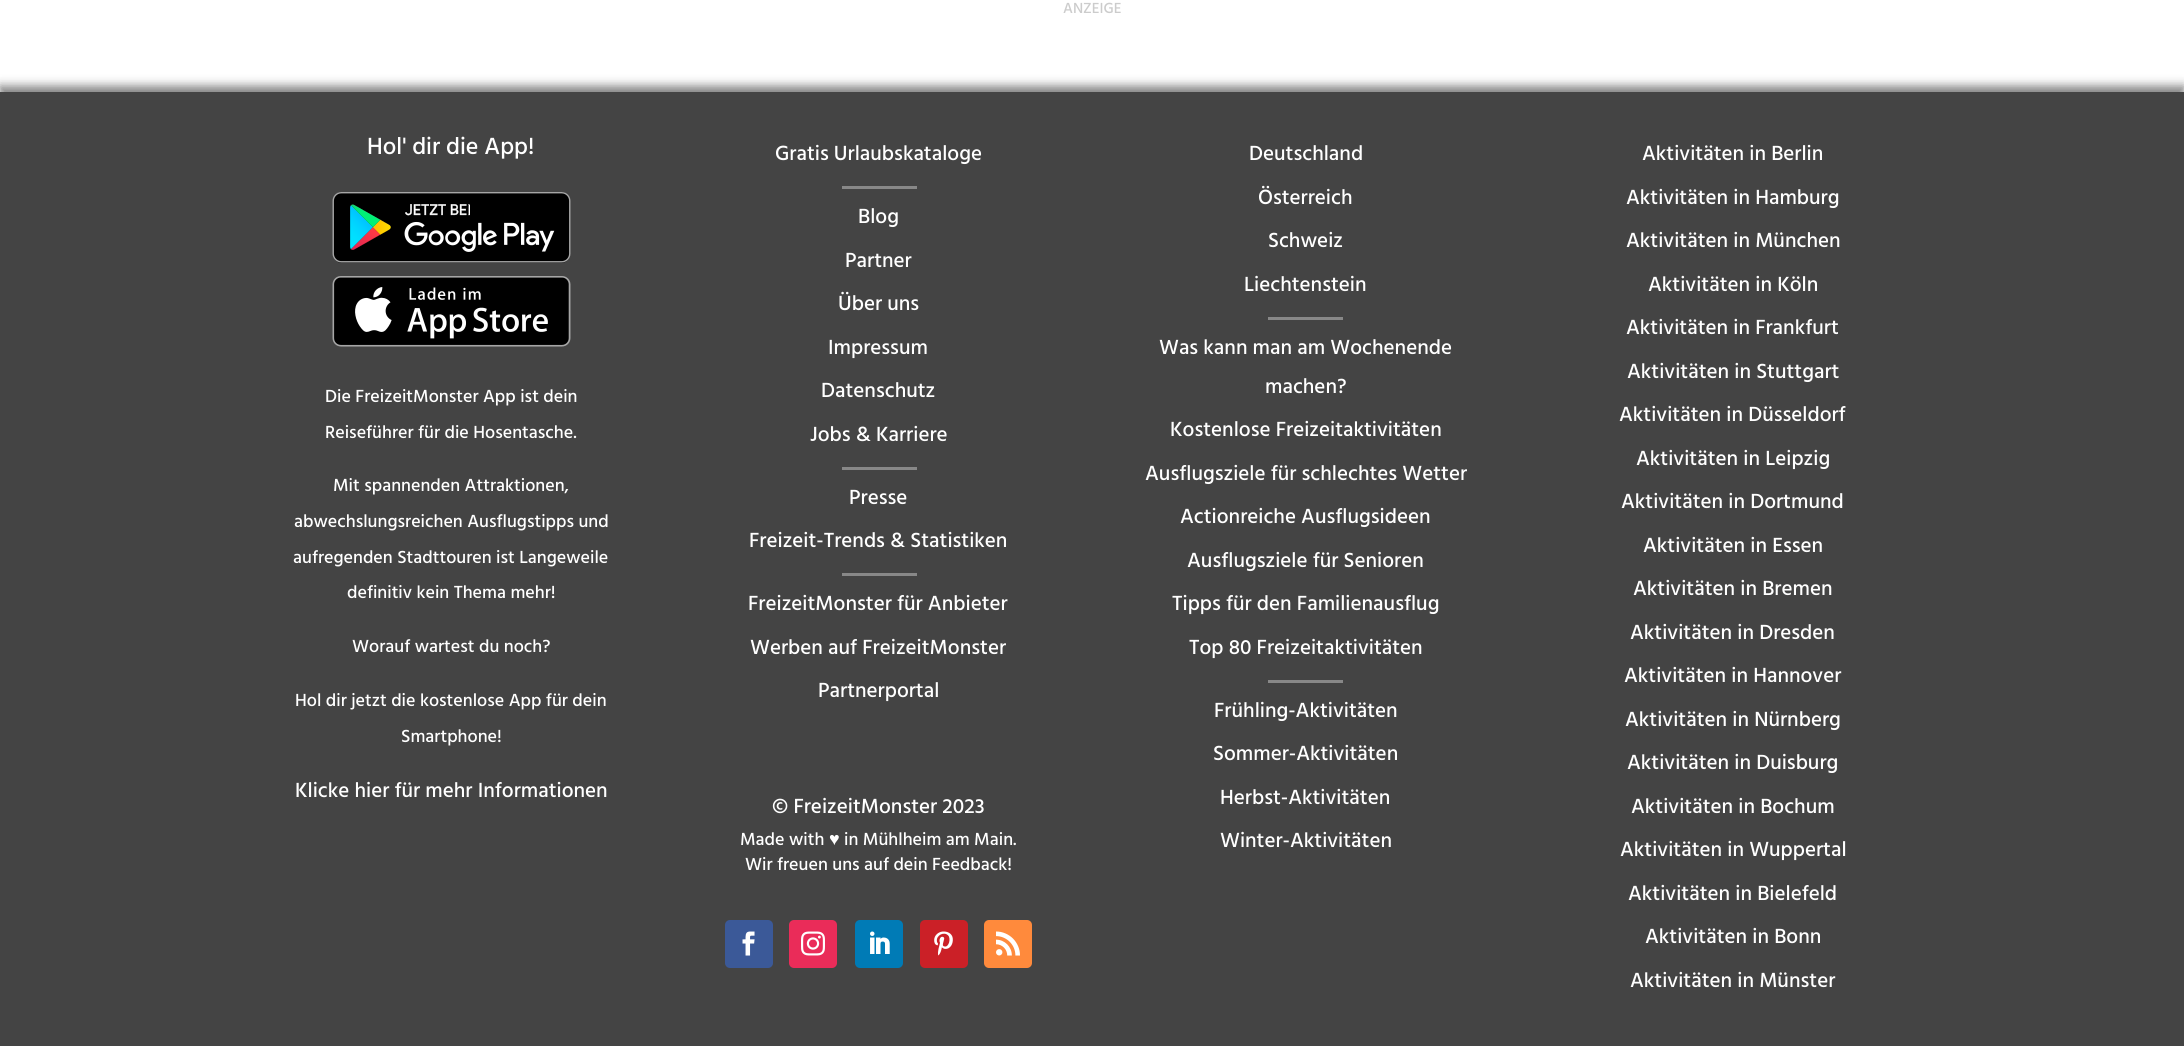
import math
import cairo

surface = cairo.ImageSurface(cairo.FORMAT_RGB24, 2184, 1046)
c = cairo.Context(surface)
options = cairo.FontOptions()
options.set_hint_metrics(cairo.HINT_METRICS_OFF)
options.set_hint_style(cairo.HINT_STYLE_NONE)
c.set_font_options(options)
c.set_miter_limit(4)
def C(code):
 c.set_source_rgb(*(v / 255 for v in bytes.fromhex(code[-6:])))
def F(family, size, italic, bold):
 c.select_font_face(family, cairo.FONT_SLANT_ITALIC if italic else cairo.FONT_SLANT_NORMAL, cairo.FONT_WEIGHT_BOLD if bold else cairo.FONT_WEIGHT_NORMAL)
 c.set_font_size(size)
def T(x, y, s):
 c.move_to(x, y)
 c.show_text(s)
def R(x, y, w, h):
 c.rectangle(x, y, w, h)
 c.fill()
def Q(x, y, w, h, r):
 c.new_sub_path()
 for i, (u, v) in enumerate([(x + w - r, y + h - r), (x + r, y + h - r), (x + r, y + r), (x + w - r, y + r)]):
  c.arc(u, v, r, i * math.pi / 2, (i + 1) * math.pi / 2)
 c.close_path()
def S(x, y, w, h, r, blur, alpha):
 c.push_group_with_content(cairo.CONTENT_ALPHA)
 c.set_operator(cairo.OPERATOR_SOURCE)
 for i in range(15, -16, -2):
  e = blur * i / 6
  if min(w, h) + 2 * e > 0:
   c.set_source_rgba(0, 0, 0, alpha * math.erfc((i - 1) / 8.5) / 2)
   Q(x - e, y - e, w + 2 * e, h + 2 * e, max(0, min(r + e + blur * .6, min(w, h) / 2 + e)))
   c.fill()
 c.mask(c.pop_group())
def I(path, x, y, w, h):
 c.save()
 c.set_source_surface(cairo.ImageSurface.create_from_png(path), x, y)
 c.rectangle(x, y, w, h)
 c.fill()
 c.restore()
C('ffffff')
c.paint()
F('Hind Medium',15,0,0)
C('cccccc')
T(1063,13,'ANZEIGE')
C('000000')
S(0,86,2184,955,0,5,.5)
C('444444')
R(0,92,2184,954)
F('Hind Medium',24,0,0)
C('ffffff')
T(367,154,'Hol\' dir die App!')
I('1.png',332,192,239,71)
I('2.png',332,276,239,71)
F('Hind Medium',18,0,0)
T(325,402,'Die FreizeitMonster App ist dein')
T(325,438,'Reiseführer für die Hosentasche.')
T(333,491,'Mit spannenden Attraktionen,')
T(294,527,'abwechslungsreichen Ausflugstipps und')
T(293,563,'aufregenden Stadttouren ist Langeweile')
T(347,598,'definitiv kein Thema mehr!')
T(352,652,'Worauf wartest du noch?')
T(295,706,'Hol dir jetzt die kostenlose App für dein')
T(401,742,'Smartphone!')
F('Hind Medium',21,0,0)
T(295,797,'Klicke hier für mehr Informationen')
T(775,160,'Gratis Urlaubskataloge')
C('888888')
R(842,186,75,3)
C('ffffff')
T(858,223,'Blog')
T(845,267,'Partner')
T(838,310,'Über uns')
T(828,354,'Impressum')
T(821,397,'Datenschutz')
T(810,441,'Jobs & Karriere')
C('888888')
R(842,467,75,3)
C('ffffff')
T(849,504,'Presse')
T(749,547,'Freizeit-Trends & Statistiken')
C('888888')
R(842,573,75,3)
C('ffffff')
T(748,610,'FreizeitMonster für Anbieter')
T(750,654,'Werben auf FreizeitMonster')
T(818,697,'Partnerportal')
T(772,813,'© FreizeitMonster 2023')
F('Hind Medium',18,0,0)
T(740,845,'Made with')
F('Liberation Sans',18,0,0)
T(829,845,'♥')
F('Hind Medium',18,0,0)
T(844,845,'in Mühlheim am Main.')
T(745,870,'Wir freuen uns auf dein Feedback!')
C('3b5998')
Q(725,920,48,48,5)
c.fill()
I('3.png',742,931,13,25)
C('ea2c59')
Q(789,920,48,48,5)
c.fill()
I('4.png',801,931,24,25)
C('007bb6')
Q(855,920,48,48,5)
c.fill()
I('5.png',870,931,20,23)
C('cb2027')
Q(920,920,48,48,5)
c.fill()
I('6.png',934,931,19,25)
C('ff8a3c')
Q(984,920,48,48,5)
c.fill()
I('7.png',996,931,24,25)
F('Hind Medium',21,0,0)
C('ffffff')
T(1249,160,'Deutschland')
T(1258,204,'Österreich')
T(1268,247,'Schweiz')
T(1244,291,'Liechtenstein')
C('888888')
R(1268,317,75,3)
C('ffffff')
T(1159,354,'Was kann man am Wochenende')
T(1265,393,'machen?')
T(1170,436,'Kostenlose Freizeitaktivitäten')
T(1145,480,'Ausflugsziele für schlechtes Wetter')
T(1180,523,'Actionreiche Ausflugsideen')
T(1187,567,'Ausflugsziele für Senioren')
T(1172,610,'Tipps für den Familienausflug')
T(1189,654,'Top 80 Freizeitaktivitäten')
C('888888')
R(1268,680,75,3)
C('ffffff')
T(1214,717,'Frühling-Aktivitäten')
T(1213,760,'Sommer-Aktivitäten')
T(1220,804,'Herbst-Aktivitäten')
T(1220,847,'Winter-Aktivitäten')
T(1642,160,'Aktivitäten in Berlin')
T(1626,204,'Aktivitäten in Hamburg')
T(1626,247,'Aktivitäten in München')
T(1648,291,'Aktivitäten in Köln')
T(1626,334,'Aktivitäten in Frankfurt')
T(1627,378,'Aktivitäten in Stuttgart')
T(1619,421,'Aktivitäten in Düsseldorf')
T(1636,465,'Aktivitäten in Leipzig')
T(1621,508,'Aktivitäten in Dortmund')
T(1643,552,'Aktivitäten in Essen')
T(1633,595,'Aktivitäten in Bremen')
T(1630,639,'Aktivitäten in Dresden')
T(1624,682,'Aktivitäten in Hannover')
T(1625,726,'Aktivitäten in Nürnberg')
T(1627,769,'Aktivitäten in Duisburg')
T(1631,813,'Aktivitäten in Bochum')
T(1620,856,'Aktivitäten in Wuppertal')
T(1628,900,'Aktivitäten in Bielefeld')
T(1645,943,'Aktivitäten in Bonn')
T(1630,987,'Aktivitäten in Münster')
surface.write_to_png('o.png')
